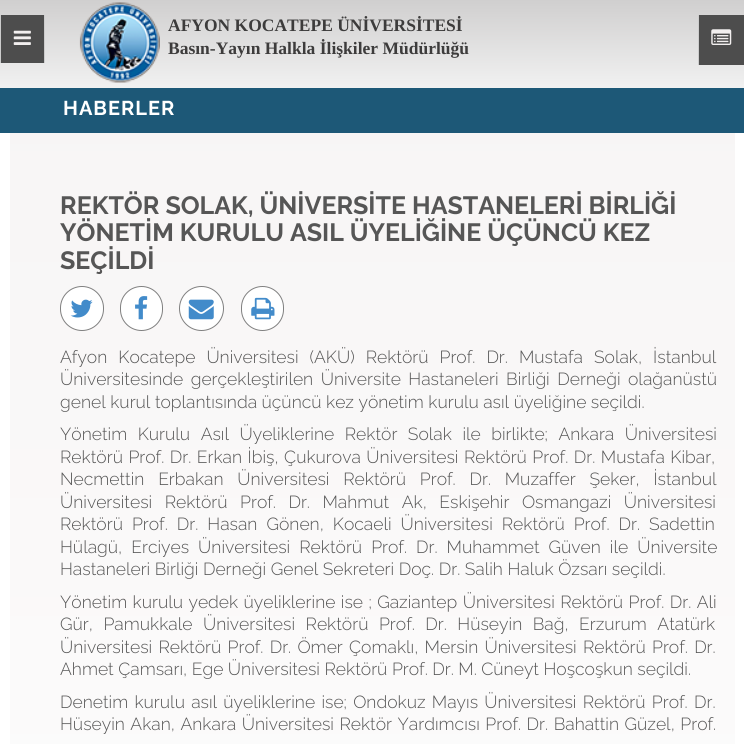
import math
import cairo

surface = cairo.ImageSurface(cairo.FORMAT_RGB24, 744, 744)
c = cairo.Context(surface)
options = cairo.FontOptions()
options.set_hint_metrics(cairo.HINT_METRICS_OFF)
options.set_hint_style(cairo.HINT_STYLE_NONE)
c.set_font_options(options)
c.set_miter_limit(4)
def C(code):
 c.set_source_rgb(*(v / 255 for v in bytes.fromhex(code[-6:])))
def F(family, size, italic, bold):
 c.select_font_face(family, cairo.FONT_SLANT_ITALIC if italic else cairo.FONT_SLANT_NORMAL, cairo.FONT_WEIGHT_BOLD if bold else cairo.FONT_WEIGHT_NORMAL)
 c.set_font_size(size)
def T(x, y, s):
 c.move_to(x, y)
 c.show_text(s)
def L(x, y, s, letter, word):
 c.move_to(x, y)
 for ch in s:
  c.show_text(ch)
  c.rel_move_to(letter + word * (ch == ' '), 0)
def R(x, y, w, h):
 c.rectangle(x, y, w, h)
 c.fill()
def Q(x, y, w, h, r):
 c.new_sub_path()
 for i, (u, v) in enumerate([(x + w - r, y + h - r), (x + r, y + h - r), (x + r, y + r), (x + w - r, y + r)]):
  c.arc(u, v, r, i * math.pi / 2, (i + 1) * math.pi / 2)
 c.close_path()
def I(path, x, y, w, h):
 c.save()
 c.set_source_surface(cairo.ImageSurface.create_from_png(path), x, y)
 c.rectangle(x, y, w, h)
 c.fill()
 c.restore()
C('ffffff')
c.paint()
gradient = cairo.LinearGradient(373,88,373,0)
gradient.add_color_stop_rgba(0,0.945,0.945,0.945,1)
gradient.add_color_stop_rgba(1,0.816,0.812,0.812,1)
c.set_source(gradient)
R(0,0,744,88)
C('4d4d4d')
R(1,15,43,48)
C('cccccc')
R(44,15,1,48)
R(0,15,1,48)
I('1.png',13,30,18,15)
I('2.png',79,2,81,81)
F('Liberation Serif',17.5,0,1)
C('3d3c3c')
T(168,31,'AFYON KOCATEPE ÜNİVERSİTESİ')
T(168,54,'Basın-Yayın Halkla İlişkiler Müdürlüğü')
C('4d4d4d')
R(699,15,45,50)
C('cccccc')
R(698,15,1,50)
I('3.png',711,29,21,16)
C('1d5877')
R(0,88,744,45)
F('Raleway',20,0,1)
C('ffffff')
L(63,115,'HABERLER',1,0)
gradient = cairo.LinearGradient(373,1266,373,91)
gradient.add_color_stop_rgba(0,1,1,1,1)
gradient.add_color_stop_rgba(1,0.969,0.961,0.961,1)
c.set_source(gradient)
R(10,133,725,611)
F('Raleway',25,0,1)
C('565656')
T(60,214,'REKTÖR SOLAK, ÜNİVERSİTE HASTANELERİ BİRLİĞİ')
T(60,241,'YÖNETİM KURULU ASIL ÜYELİĞİNE ÜÇÜNCÜ KEZ')
T(60,269,'SEÇİLDİ')
C('ffffff')
Q(60.5,286.5,43,44,21.5)
c.fill_preserve()
C('808080')
c.set_line_width(1)
c.stroke()
I('4.png',70,299,23,19)
C('ffffff')
Q(120.5,286.5,42,44,21)
c.fill_preserve()
C('808080')
c.stroke()
I('5.png',135,296,13,24)
C('ffffff')
c.arc(201.5,308.5,22,0,2 * math.pi)
c.fill_preserve()
C('808080')
c.stroke()
I('6.png',188,299,26,21)
C('ffffff')
Q(241.5,286.5,42,44,21)
c.fill_preserve()
C('808080')
c.stroke()
I('7.png',251,297,24,23)
F('Raleway Light',17.5,0,0)
C('565656')
L(60,363,'Afyon Kocatepe Üniversitesi (AKÜ) Rektörü Prof. Dr. Mustafa Solak, İstanbul',0,6.5)
L(60,385,'Üniversitesinde gerçekleştirilen Üniversite Hastaneleri Birliği Derneği olağanüstü',0,3)
T(60,408,'genel kurul toplantısında üçüncü kez yönetim kurulu asıl üyeliğine seçildi.')
L(60,440,'Yönetim Kurulu Asıl Üyeliklerine Rektör Solak ile birlikte; Ankara Üniversitesi',0,6)
L(60,463,'Rektörü Prof. Dr. Erkan İbiş, Çukurova Üniversitesi Rektörü Prof. Dr. Mustafa Kibar,',0,1)
L(60,485,'Necmettin Erbakan Üniversitesi Rektörü Prof. Dr. Muzaffer Şeker, İstanbul',0,9.25)
L(60,508,'Üniversitesi Rektörü Prof. Dr. Mahmut Ak, Eskişehir Osmangazi Üniversitesi',0,8)
L(60,530,'Rektörü Prof. Dr. Hasan Gönen, Kocaeli Üniversitesi Rektörü Prof. Dr. Sadettin',0,4.5)
L(60,553,'Hülagü, Erciyes Üniversitesi Rektörü Prof. Dr. Muhammet Güven ile Üniversite',0,4.5)
T(60,575,'Hastaneleri Birliği Derneği Genel Sekreteri Doç. Dr. Salih Haluk Özsarı seçildi.')
L(60,608,'Yönetim kurulu yedek üyeliklerine ise ; Gaziantep Üniversitesi Rektörü Prof. Dr. Ali',0,.9)
L(60,630,'Gür, Pamukkale Üniversitesi Rektörü Prof. Dr. Hüseyin Bağ, Erzurum Atatürk',0,6)
L(60,653,'Üniversitesi Rektörü Prof. Dr. Ömer Çomaklı, Mersin Üniversitesi Rektörü Prof. Dr.',0,1.75)
T(60,675,'Ahmet Çamsarı, Ege Üniversitesi Rektörü Prof. Dr. M. Cüneyt Hoşcoşkun seçildi.')
L(60,708,'Denetim kurulu asıl üyeliklerine ise; Ondokuz Mayıs Üniversitesi Rektörü Prof. Dr.',0,1.75)
L(60,730,'Hüseyin Akan, Ankara Üniversitesi Rektör Yardımcısı Prof. Dr. Bahattin Güzel, Prof.',0,1)
surface.write_to_png('o.png')
